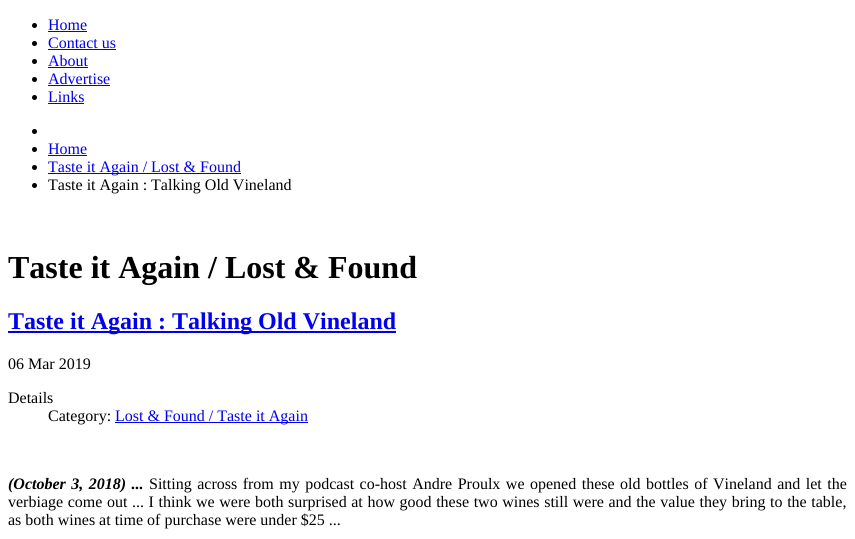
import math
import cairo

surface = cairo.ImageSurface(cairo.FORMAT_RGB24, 855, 539)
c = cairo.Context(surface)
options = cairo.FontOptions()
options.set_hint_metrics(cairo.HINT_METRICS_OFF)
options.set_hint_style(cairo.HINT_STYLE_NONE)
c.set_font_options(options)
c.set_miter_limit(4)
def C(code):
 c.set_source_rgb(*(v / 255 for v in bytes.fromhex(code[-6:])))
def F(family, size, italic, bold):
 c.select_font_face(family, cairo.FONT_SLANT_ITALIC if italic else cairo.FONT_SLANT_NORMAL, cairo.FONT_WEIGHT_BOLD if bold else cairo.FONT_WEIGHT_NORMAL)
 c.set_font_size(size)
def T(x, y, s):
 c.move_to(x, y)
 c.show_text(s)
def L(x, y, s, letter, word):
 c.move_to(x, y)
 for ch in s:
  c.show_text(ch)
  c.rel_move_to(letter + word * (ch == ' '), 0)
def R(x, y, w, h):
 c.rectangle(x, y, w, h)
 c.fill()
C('ffffff')
c.paint()
C('000000')
c.arc(34.5,25.5,2.5,0,2 * math.pi)
c.fill()
F('Liberation Serif',16,0,0)
C('0000ee')
T(48,30,'Home')
R(48,31,39,1)
C('000000')
c.new_path()
c.arc(34.5,43.5,2.5,0,2 * math.pi)
c.fill()
C('0000ee')
T(48,48,'Contact us')
R(48,49,68,1)
C('000000')
c.new_path()
c.arc(34.5,61.5,2.5,0,2 * math.pi)
c.fill()
C('0000ee')
T(48,66,'About')
R(48,67,40,1)
C('000000')
c.new_path()
c.arc(34.5,79.5,2.5,0,2 * math.pi)
c.fill()
C('0000ee')
T(48,84,'Advertise')
R(48,85,62,1)
C('000000')
c.new_path()
c.arc(34.5,97.5,2.5,0,2 * math.pi)
c.fill()
C('0000ee')
T(48,102,'Links')
R(48,103,36,1)
C('000000')
c.new_path()
c.arc(34.5,131.5,2.5,0,2 * math.pi)
c.fill()
c.arc(34.5,149.5,2.5,0,2 * math.pi)
c.fill()
C('0000ee')
T(48,154,'Home')
R(48,155,39,1)
C('000000')
c.new_path()
c.arc(34.5,167.5,2.5,0,2 * math.pi)
c.fill()
C('0000ee')
R(48,173,193,1)
T(48,172,'Taste it Again / Lost & Found')
C('000000')
c.new_path()
c.arc(34.5,185.5,2.5,0,2 * math.pi)
c.fill()
T(48,190,'Taste it Again : Talking Old Vineland')
F('Liberation Serif',32,0,1)
T(8,278,'Taste it Again / Lost & Found')
C('0000ee')
R(8,331,388,2)
F('Liberation Serif',24,0,1)
T(8,329,'Taste it Again : Talking Old Vineland')
F('Liberation Serif',16,0,0)
C('000000')
T(8,369,'06 Mar 2019')
T(8,403,'Details')
T(48,421,'Category:')
C('0000ee')
R(115,422,193,1)
T(115,421,'Lost & Found / Taste it Again')
F('Liberation Serif',16,1,1)
C('000000')
L(8,489,'(October 3, 2018) ...',0,1.5)
F('Liberation Serif',16,0,0)
L(149,489,'Sitting across from my podcast co-host Andre Proulx we opened these old bottles of Vineland and let the',0,1.5)
L(8,507,'verbiage come out ... I think we were both surprised at how good these two wines still were and the value they bring to the table,',0,.6)
T(8,525,'as both wines at time of purchase were under $25 ...')
surface.write_to_png('o.png')
